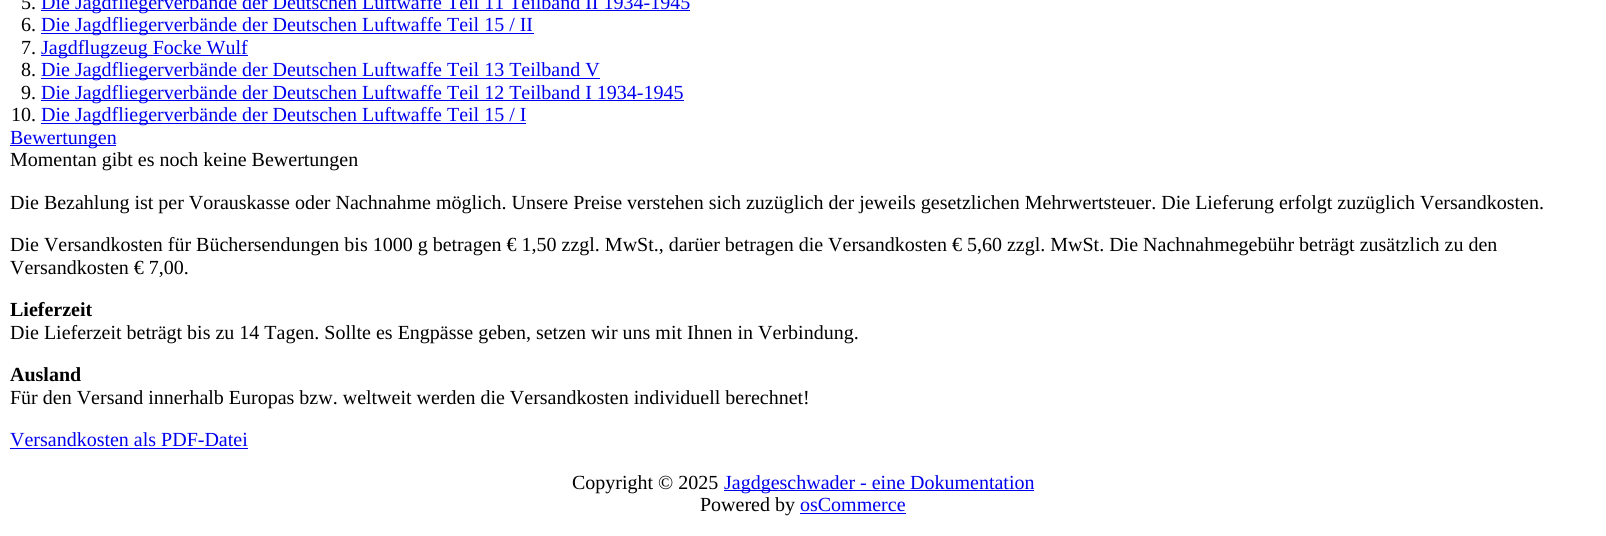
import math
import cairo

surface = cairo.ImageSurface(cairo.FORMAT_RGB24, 1606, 536)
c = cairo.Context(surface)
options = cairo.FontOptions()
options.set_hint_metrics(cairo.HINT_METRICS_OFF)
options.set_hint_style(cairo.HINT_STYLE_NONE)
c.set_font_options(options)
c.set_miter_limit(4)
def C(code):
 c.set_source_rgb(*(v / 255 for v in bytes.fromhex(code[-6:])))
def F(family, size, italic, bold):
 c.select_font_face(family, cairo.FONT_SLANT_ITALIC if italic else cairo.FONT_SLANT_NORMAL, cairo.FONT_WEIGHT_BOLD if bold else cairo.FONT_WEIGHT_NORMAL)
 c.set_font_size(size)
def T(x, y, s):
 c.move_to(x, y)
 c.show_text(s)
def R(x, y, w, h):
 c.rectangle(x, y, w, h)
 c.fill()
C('ffffff')
c.paint()
F('Liberation Serif',20,0,0)
C('000000')
T(21,9,'5.')
C('0000ee')
R(41,10,649,1)
T(41,9,'Die Jagdfliegerverbände der Deutschen Luftwaffe Teil 11 Teilband II 1934-1945')
C('000000')
T(21,31,'6.')
C('0000ee')
R(41,33,493,1)
T(41,31,'Die Jagdfliegerverbände der Deutschen Luftwaffe Teil 15 / II')
C('000000')
T(21,54,'7.')
C('0000ee')
R(41,55,207,1)
T(41,54,'Jagdflugzeug Focke Wulf')
C('000000')
T(21,76,'8.')
C('0000ee')
R(41,78,559,1)
T(41,76,'Die Jagdfliegerverbände der Deutschen Luftwaffe Teil 13 Teilband V')
C('000000')
T(21,99,'9.')
C('0000ee')
R(41,100,643,1)
T(41,99,'Die Jagdfliegerverbände der Deutschen Luftwaffe Teil 12 Teilband I 1934-1945')
C('000000')
T(11,121,'10.')
C('0000ee')
R(41,123,485,1)
T(41,121,'Die Jagdfliegerverbände der Deutschen Luftwaffe Teil 15 / I')
R(10,145,106,1)
T(10,144,'Bewertungen')
C('000000')
T(10,166,'Momentan gibt es noch keine Bewertungen')
T(10,209,'Die Bezahlung ist per Vorauskasse oder Nachnahme möglich. Unsere Preise verstehen sich zuzüglich der jeweils gesetzlichen Mehrwertsteuer. Die Lieferung erfolgt zuzüglich Versandkosten.')
T(10,251,'Die Versandkosten für Büchersendungen bis 1000 g betragen € 1,50 zzgl. MwSt., darüer betragen die Versandkosten € 5,60 zzgl. MwSt. Die Nachnahmegebühr beträgt zusätzlich zu den')
T(10,274,'Versandkosten € 7,00.')
F('Liberation Serif',20,0,1)
T(10,316,'Lieferzeit')
F('Liberation Serif',20,0,0)
T(10,339,'Die Lieferzeit beträgt bis zu 14 Tagen. Sollte es Engpässe geben, setzen wir uns mit Ihnen in Verbindung.')
F('Liberation Serif',20,0,1)
T(10,381,'Ausland')
F('Liberation Serif',20,0,0)
T(10,404,'Für den Versand innerhalb Europas bzw. weltweit werden die Versandkosten individuell berechnet!')
C('0000ee')
T(10,446,'Versandkosten als PDF-Datei')
R(10,448,238,1)
C('000000')
T(572,489,'Copyright © 2025')
C('0000ee')
R(724,490,310,1)
T(724,489,'Jagdgeschwader - eine Dokumentation')
C('000000')
T(700,511,'Powered by')
C('0000ee')
T(800,511,'osCommerce')
R(800,513,106,1)
surface.write_to_png('o.png')
